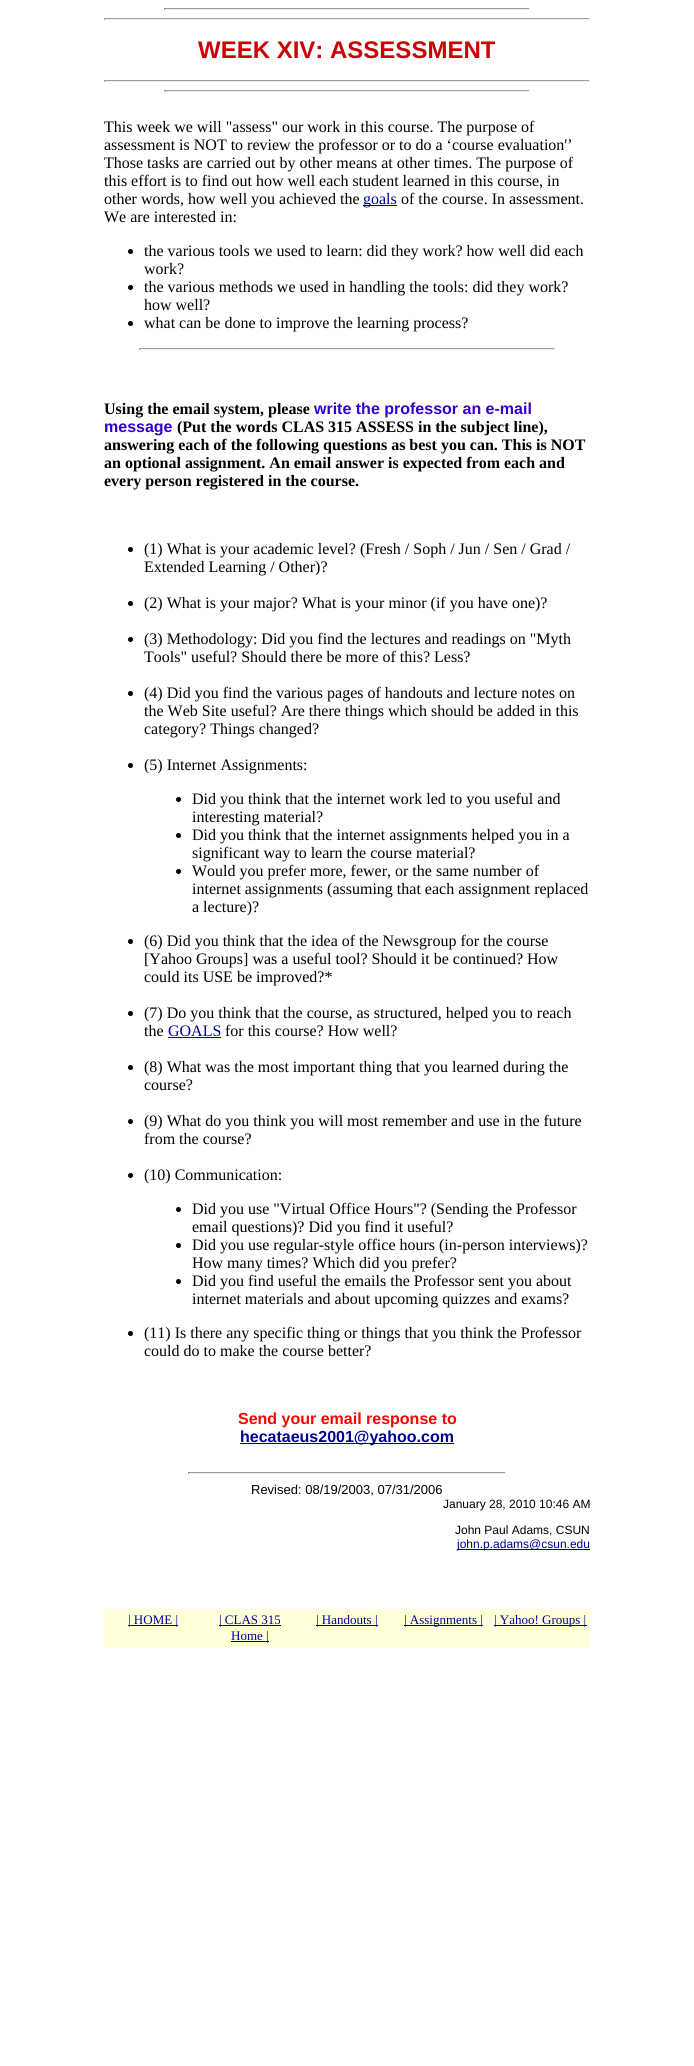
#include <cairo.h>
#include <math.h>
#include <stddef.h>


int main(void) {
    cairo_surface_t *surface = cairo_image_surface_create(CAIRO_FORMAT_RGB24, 694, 2066);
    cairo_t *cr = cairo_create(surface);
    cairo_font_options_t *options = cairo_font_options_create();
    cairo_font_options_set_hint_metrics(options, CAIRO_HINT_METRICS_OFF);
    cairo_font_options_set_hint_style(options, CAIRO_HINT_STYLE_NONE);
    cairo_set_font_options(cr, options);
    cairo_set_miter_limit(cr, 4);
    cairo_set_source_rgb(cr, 1, 1, 1);
    cairo_paint(cr);
    cairo_set_source_rgb(cr, 0.624, 0.624, 0.624);
    cairo_rectangle(cr, 164, 8, 366, 1);
    cairo_fill(cr);
    cairo_set_source_rgb(cr, 0.933, 0.933, 0.933);
    cairo_rectangle(cr, 529, 8, 1, 2);
    cairo_fill(cr);
    cairo_rectangle(cr, 164, 9, 366, 1);
    cairo_fill(cr);
    cairo_set_source_rgb(cr, 0.624, 0.624, 0.624);
    cairo_rectangle(cr, 164, 8, 1, 2);
    cairo_fill(cr);
    cairo_rectangle(cr, 104, 18, 486, 1);
    cairo_fill(cr);
    cairo_set_source_rgb(cr, 0.933, 0.933, 0.933);
    cairo_rectangle(cr, 589, 18, 1, 2);
    cairo_fill(cr);
    cairo_rectangle(cr, 104, 19, 486, 1);
    cairo_fill(cr);
    cairo_set_source_rgb(cr, 0.624, 0.624, 0.624);
    cairo_rectangle(cr, 104, 18, 1, 2);
    cairo_fill(cr);
    cairo_select_font_face(cr, "Liberation Sans", CAIRO_FONT_SLANT_NORMAL, CAIRO_FONT_WEIGHT_BOLD);
    cairo_set_font_size(cr, 24);
    cairo_set_source_rgb(cr, 0.8, 0, 0);
    cairo_move_to(cr, 198, 58);
    cairo_show_text(cr, "WEEK XIV: ASSESSMENT");
    cairo_set_source_rgb(cr, 0.624, 0.624, 0.624);
    cairo_rectangle(cr, 104, 80, 486, 1);
    cairo_fill(cr);
    cairo_set_source_rgb(cr, 0.933, 0.933, 0.933);
    cairo_rectangle(cr, 589, 80, 1, 2);
    cairo_fill(cr);
    cairo_rectangle(cr, 104, 81, 486, 1);
    cairo_fill(cr);
    cairo_set_source_rgb(cr, 0.624, 0.624, 0.624);
    cairo_rectangle(cr, 104, 80, 1, 2);
    cairo_fill(cr);
    cairo_rectangle(cr, 164, 90, 366, 1);
    cairo_fill(cr);
    cairo_set_source_rgb(cr, 0.933, 0.933, 0.933);
    cairo_rectangle(cr, 529, 90, 1, 2);
    cairo_fill(cr);
    cairo_rectangle(cr, 164, 91, 366, 1);
    cairo_fill(cr);
    cairo_set_source_rgb(cr, 0.624, 0.624, 0.624);
    cairo_rectangle(cr, 164, 90, 1, 2);
    cairo_fill(cr);
    cairo_select_font_face(cr, "Liberation Serif", CAIRO_FONT_SLANT_NORMAL, CAIRO_FONT_WEIGHT_NORMAL);
    cairo_set_font_size(cr, 16);
    cairo_set_source_rgb(cr, 0, 0, 0);
    cairo_move_to(cr, 104, 132);
    cairo_show_text(cr, "This week we will \"assess\" our work in this course. The purpose of");
    cairo_move_to(cr, 104, 150);
    cairo_show_text(cr, "assessment is NOT to review the professor or to do a ‘course evaluation'’");
    cairo_move_to(cr, 104, 168);
    cairo_show_text(cr, "Those tasks are carried out by other means at other times. The purpose of");
    cairo_move_to(cr, 104, 186);
    cairo_show_text(cr, "this effort is to find out how well each student learned in this course, in");
    cairo_move_to(cr, 104, 204);
    cairo_show_text(cr, "other words, how well you achieved the");
    cairo_set_source_rgb(cr, 0, 0, 0.6);
    cairo_rectangle(cr, 363, 205, 34, 1);
    cairo_fill(cr);
    cairo_move_to(cr, 363, 204);
    cairo_show_text(cr, "goals");
    cairo_set_source_rgb(cr, 0, 0, 0);
    cairo_move_to(cr, 401, 204);
    cairo_show_text(cr, "of the course. In assessment.");
    cairo_move_to(cr, 104, 222);
    cairo_show_text(cr, "We are interested in:");
    cairo_new_path(cr);
    cairo_arc(cr, 130.5, 251.5, 2.5, 0, 2 * M_PI);
    cairo_fill(cr);
    cairo_move_to(cr, 144, 256);
    cairo_show_text(cr, "the various tools we used to learn: did they work? how well did each");
    cairo_move_to(cr, 144, 274);
    cairo_show_text(cr, "work?");
    cairo_new_path(cr);
    cairo_arc(cr, 130.5, 287.5, 2.5, 0, 2 * M_PI);
    cairo_fill(cr);
    cairo_move_to(cr, 144, 292);
    cairo_show_text(cr, "the various methods we used in handling the tools: did they work?");
    cairo_move_to(cr, 144, 310);
    cairo_show_text(cr, "how well?");
    cairo_new_path(cr);
    cairo_arc(cr, 130.5, 323.5, 2.5, 0, 2 * M_PI);
    cairo_fill(cr);
    cairo_move_to(cr, 144, 328);
    cairo_show_text(cr, "what can be done to improve the learning process?");
    cairo_set_source_rgb(cr, 0.624, 0.624, 0.624);
    cairo_rectangle(cr, 139, 348, 416, 1);
    cairo_fill(cr);
    cairo_set_source_rgb(cr, 0.933, 0.933, 0.933);
    cairo_rectangle(cr, 554, 348, 1, 2);
    cairo_fill(cr);
    cairo_rectangle(cr, 139, 349, 416, 1);
    cairo_fill(cr);
    cairo_set_source_rgb(cr, 0.624, 0.624, 0.624);
    cairo_rectangle(cr, 139, 348, 1, 2);
    cairo_fill(cr);
    cairo_select_font_face(cr, "Liberation Serif", CAIRO_FONT_SLANT_NORMAL, CAIRO_FONT_WEIGHT_BOLD);
    cairo_set_source_rgb(cr, 0, 0, 0);
    cairo_move_to(cr, 104, 414);
    cairo_show_text(cr, "Using the email system, please");
    cairo_select_font_face(cr, "Liberation Sans", CAIRO_FONT_SLANT_NORMAL, CAIRO_FONT_WEIGHT_BOLD);
    cairo_set_source_rgb(cr, 0.2, 0, 0.8);
    cairo_move_to(cr, 314, 414);
    cairo_show_text(cr, "write the professor an e-mail");
    cairo_move_to(cr, 104, 432);
    cairo_show_text(cr, "message");
    cairo_select_font_face(cr, "Liberation Serif", CAIRO_FONT_SLANT_NORMAL, CAIRO_FONT_WEIGHT_BOLD);
    cairo_set_source_rgb(cr, 0, 0, 0);
    cairo_move_to(cr, 177, 432);
    cairo_show_text(cr, "(Put the words CLAS 315 ASSESS in the subject line),");
    cairo_move_to(cr, 104, 450);
    cairo_show_text(cr, "answering each of the following questions as best you can. This is NOT");
    cairo_move_to(cr, 104, 468);
    cairo_show_text(cr, "an optional assignment. An email answer is expected from each and");
    cairo_move_to(cr, 104, 486);
    cairo_show_text(cr, "every person registered in the course.");
    cairo_new_path(cr);
    cairo_arc(cr, 130.5, 549.5, 2.5, 0, 2 * M_PI);
    cairo_fill(cr);
    cairo_select_font_face(cr, "Liberation Serif", CAIRO_FONT_SLANT_NORMAL, CAIRO_FONT_WEIGHT_NORMAL);
    cairo_move_to(cr, 144, 554);
    cairo_show_text(cr, "(1) What is your academic level? (Fresh / Soph / Jun / Sen / Grad /");
    cairo_move_to(cr, 144, 572);
    cairo_show_text(cr, "Extended Learning / Other)?");
    cairo_new_path(cr);
    cairo_arc(cr, 130.5, 603.5, 2.5, 0, 2 * M_PI);
    cairo_fill(cr);
    cairo_move_to(cr, 144, 608);
    cairo_show_text(cr, "(2) What is your major? What is your minor (if you have one)?");
    cairo_new_path(cr);
    cairo_arc(cr, 130.5, 639.5, 2.5, 0, 2 * M_PI);
    cairo_fill(cr);
    cairo_move_to(cr, 144, 644);
    cairo_show_text(cr, "(3) Methodology: Did you find the lectures and readings on \"Myth");
    cairo_move_to(cr, 144, 662);
    cairo_show_text(cr, "Tools\" useful? Should there be more of this? Less?");
    cairo_new_path(cr);
    cairo_arc(cr, 130.5, 693.5, 2.5, 0, 2 * M_PI);
    cairo_fill(cr);
    cairo_move_to(cr, 144, 698);
    cairo_show_text(cr, "(4) Did you find the various pages of handouts and lecture notes on");
    cairo_move_to(cr, 144, 716);
    cairo_show_text(cr, "the Web Site useful? Are there things which should be added in this");
    cairo_move_to(cr, 144, 734);
    cairo_show_text(cr, "category? Things changed?");
    cairo_new_path(cr);
    cairo_arc(cr, 130.5, 765.5, 2.5, 0, 2 * M_PI);
    cairo_fill(cr);
    cairo_move_to(cr, 144, 770);
    cairo_show_text(cr, "(5) Internet Assignments:");
    cairo_new_path(cr);
    cairo_arc(cr, 178.5, 799.5, 2.5, 0, 2 * M_PI);
    cairo_fill(cr);
    cairo_move_to(cr, 192, 804);
    cairo_show_text(cr, "Did you think that the internet work led to you useful and");
    cairo_move_to(cr, 192, 822);
    cairo_show_text(cr, "interesting material?");
    cairo_new_path(cr);
    cairo_arc(cr, 178.5, 835.5, 2.5, 0, 2 * M_PI);
    cairo_fill(cr);
    cairo_move_to(cr, 192, 840);
    cairo_show_text(cr, "Did you think that the internet assignments helped you in a");
    cairo_move_to(cr, 192, 858);
    cairo_show_text(cr, "significant way to learn the course material?");
    cairo_new_path(cr);
    cairo_arc(cr, 178.5, 871.5, 2.5, 0, 2 * M_PI);
    cairo_fill(cr);
    cairo_move_to(cr, 192, 876);
    cairo_show_text(cr, "Would you prefer more, fewer, or the same number of");
    cairo_move_to(cr, 192, 894);
    cairo_show_text(cr, "internet assignments (assuming that each assignment replaced");
    cairo_move_to(cr, 192, 912);
    cairo_show_text(cr, "a lecture)?");
    cairo_new_path(cr);
    cairo_arc(cr, 130.5, 941.5, 2.5, 0, 2 * M_PI);
    cairo_fill(cr);
    cairo_move_to(cr, 144, 946);
    cairo_show_text(cr, "(6) Did you think that the idea of the Newsgroup for the course");
    cairo_move_to(cr, 144, 964);
    cairo_show_text(cr, "[Yahoo Groups] was a useful tool? Should it be continued? How");
    cairo_move_to(cr, 144, 982);
    cairo_show_text(cr, "could its USE be improved?*");
    cairo_new_path(cr);
    cairo_arc(cr, 130.5, 1013.5, 2.5, 0, 2 * M_PI);
    cairo_fill(cr);
    cairo_move_to(cr, 144, 1018);
    cairo_show_text(cr, "(7) Do you think that the course, as structured, helped you to reach");
    cairo_move_to(cr, 144, 1036);
    cairo_show_text(cr, "the");
    cairo_set_source_rgb(cr, 0, 0, 0.6);
    cairo_move_to(cr, 168, 1036);
    cairo_show_text(cr, "GOALS");
    cairo_rectangle(cr, 168, 1037, 53, 1);
    cairo_fill(cr);
    cairo_set_source_rgb(cr, 0, 0, 0);
    cairo_move_to(cr, 225, 1036);
    cairo_show_text(cr, "for this course? How well?");
    cairo_new_path(cr);
    cairo_arc(cr, 130.5, 1067.5, 2.5, 0, 2 * M_PI);
    cairo_fill(cr);
    cairo_move_to(cr, 144, 1072);
    cairo_show_text(cr, "(8) What was the most important thing that you learned during the");
    cairo_move_to(cr, 144, 1090);
    cairo_show_text(cr, "course?");
    cairo_new_path(cr);
    cairo_arc(cr, 130.5, 1121.5, 2.5, 0, 2 * M_PI);
    cairo_fill(cr);
    cairo_move_to(cr, 144, 1126);
    cairo_show_text(cr, "(9) What do you think you will most remember and use in the future");
    cairo_move_to(cr, 144, 1144);
    cairo_show_text(cr, "from the course?");
    cairo_new_path(cr);
    cairo_arc(cr, 130.5, 1175.5, 2.5, 0, 2 * M_PI);
    cairo_fill(cr);
    cairo_move_to(cr, 144, 1180);
    cairo_show_text(cr, "(10) Communication:");
    cairo_new_path(cr);
    cairo_arc(cr, 178.5, 1209.5, 2.5, 0, 2 * M_PI);
    cairo_fill(cr);
    cairo_move_to(cr, 192, 1214);
    cairo_show_text(cr, "Did you use \"Virtual Office Hours\"? (Sending the Professor");
    cairo_move_to(cr, 192, 1232);
    cairo_show_text(cr, "email questions)? Did you find it useful?");
    cairo_new_path(cr);
    cairo_arc(cr, 178.5, 1245.5, 2.5, 0, 2 * M_PI);
    cairo_fill(cr);
    cairo_move_to(cr, 192, 1250);
    cairo_show_text(cr, "Did you use regular-style office hours (in-person interviews)?");
    cairo_move_to(cr, 192, 1268);
    cairo_show_text(cr, "How many times? Which did you prefer?");
    cairo_new_path(cr);
    cairo_arc(cr, 178.5, 1281.5, 2.5, 0, 2 * M_PI);
    cairo_fill(cr);
    cairo_move_to(cr, 192, 1286);
    cairo_show_text(cr, "Did you find useful the emails the Professor sent you about");
    cairo_move_to(cr, 192, 1304);
    cairo_show_text(cr, "internet materials and about upcoming quizzes and exams?");
    cairo_new_path(cr);
    cairo_arc(cr, 130.5, 1333.5, 2.5, 0, 2 * M_PI);
    cairo_fill(cr);
    cairo_move_to(cr, 144, 1338);
    cairo_show_text(cr, "(11) Is there any specific thing or things that you think the Professor");
    cairo_move_to(cr, 144, 1356);
    cairo_show_text(cr, "could do to make the course better?");
    cairo_select_font_face(cr, "Liberation Sans", CAIRO_FONT_SLANT_NORMAL, CAIRO_FONT_WEIGHT_BOLD);
    cairo_set_source_rgb(cr, 1, 0, 0);
    cairo_move_to(cr, 238, 1424);
    cairo_show_text(cr, "Send your email response to");
    cairo_set_source_rgb(cr, 0, 0, 0.6);
    cairo_rectangle(cr, 240, 1443, 214, 1);
    cairo_fill(cr);
    cairo_move_to(cr, 240, 1442);
    cairo_show_text(cr, "hecataeus2001@yahoo.com");
    cairo_set_source_rgb(cr, 0.624, 0.624, 0.624);
    cairo_rectangle(cr, 188, 1472, 318, 1);
    cairo_fill(cr);
    cairo_set_source_rgb(cr, 0.933, 0.933, 0.933);
    cairo_rectangle(cr, 505, 1472, 1, 2);
    cairo_fill(cr);
    cairo_rectangle(cr, 188, 1473, 318, 1);
    cairo_fill(cr);
    cairo_set_source_rgb(cr, 0.624, 0.624, 0.624);
    cairo_rectangle(cr, 188, 1472, 1, 2);
    cairo_fill(cr);
    cairo_select_font_face(cr, "Liberation Sans", CAIRO_FONT_SLANT_NORMAL, CAIRO_FONT_WEIGHT_NORMAL);
    cairo_set_font_size(cr, 13);
    cairo_set_source_rgb(cr, 0, 0, 0);
    cairo_move_to(cr, 251, 1494);
    cairo_show_text(cr, "Revised: 08/19/2003, 07/31/2006");
    cairo_set_font_size(cr, 12);
    cairo_move_to(cr, 443, 1508);
    cairo_show_text(cr, "January 28, 2010 10:46 AM");
    cairo_move_to(cr, 455, 1534);
    cairo_show_text(cr, "John Paul Adams, CSUN");
    cairo_set_source_rgb(cr, 0, 0, 0.6);
    cairo_rectangle(cr, 457, 1549, 133, 1);
    cairo_fill(cr);
    cairo_move_to(cr, 457, 1548);
    cairo_show_text(cr, "john.p.adams@csun.edu");
    cairo_set_source_rgb(cr, 1, 1, 0.847);
    cairo_rectangle(cr, 104, 1609, 486, 38);
    cairo_fill(cr);
    cairo_set_source_rgb(cr, 0, 0, 0.6);
    cairo_rectangle(cr, 128, 1625, 50, 1);
    cairo_fill(cr);
    cairo_select_font_face(cr, "Liberation Serif", CAIRO_FONT_SLANT_NORMAL, CAIRO_FONT_WEIGHT_NORMAL);
    cairo_set_font_size(cr, 13);
    cairo_move_to(cr, 128, 1624);
    cairo_show_text(cr, "| HOME |");
    cairo_rectangle(cr, 219, 1625, 62, 1);
    cairo_fill(cr);
    cairo_move_to(cr, 219, 1624);
    cairo_show_text(cr, "| CLAS 315");
    cairo_rectangle(cr, 231, 1641, 38, 1);
    cairo_fill(cr);
    cairo_move_to(cr, 231, 1640);
    cairo_show_text(cr, "Home |");
    cairo_rectangle(cr, 316, 1625, 62, 1);
    cairo_fill(cr);
    cairo_move_to(cr, 316, 1624);
    cairo_show_text(cr, "| Handouts |");
    cairo_rectangle(cr, 404, 1625, 79, 1);
    cairo_fill(cr);
    cairo_move_to(cr, 404, 1624);
    cairo_show_text(cr, "| Assignments |");
    cairo_rectangle(cr, 494, 1625, 93, 1);
    cairo_fill(cr);
    cairo_move_to(cr, 494, 1624);
    cairo_show_text(cr, "| Yahoo! Groups |");
    cairo_surface_write_to_png(surface, "page.png");
    cairo_font_options_destroy(options);
    cairo_destroy(cr);
    cairo_surface_destroy(surface);
    return 0;
}
